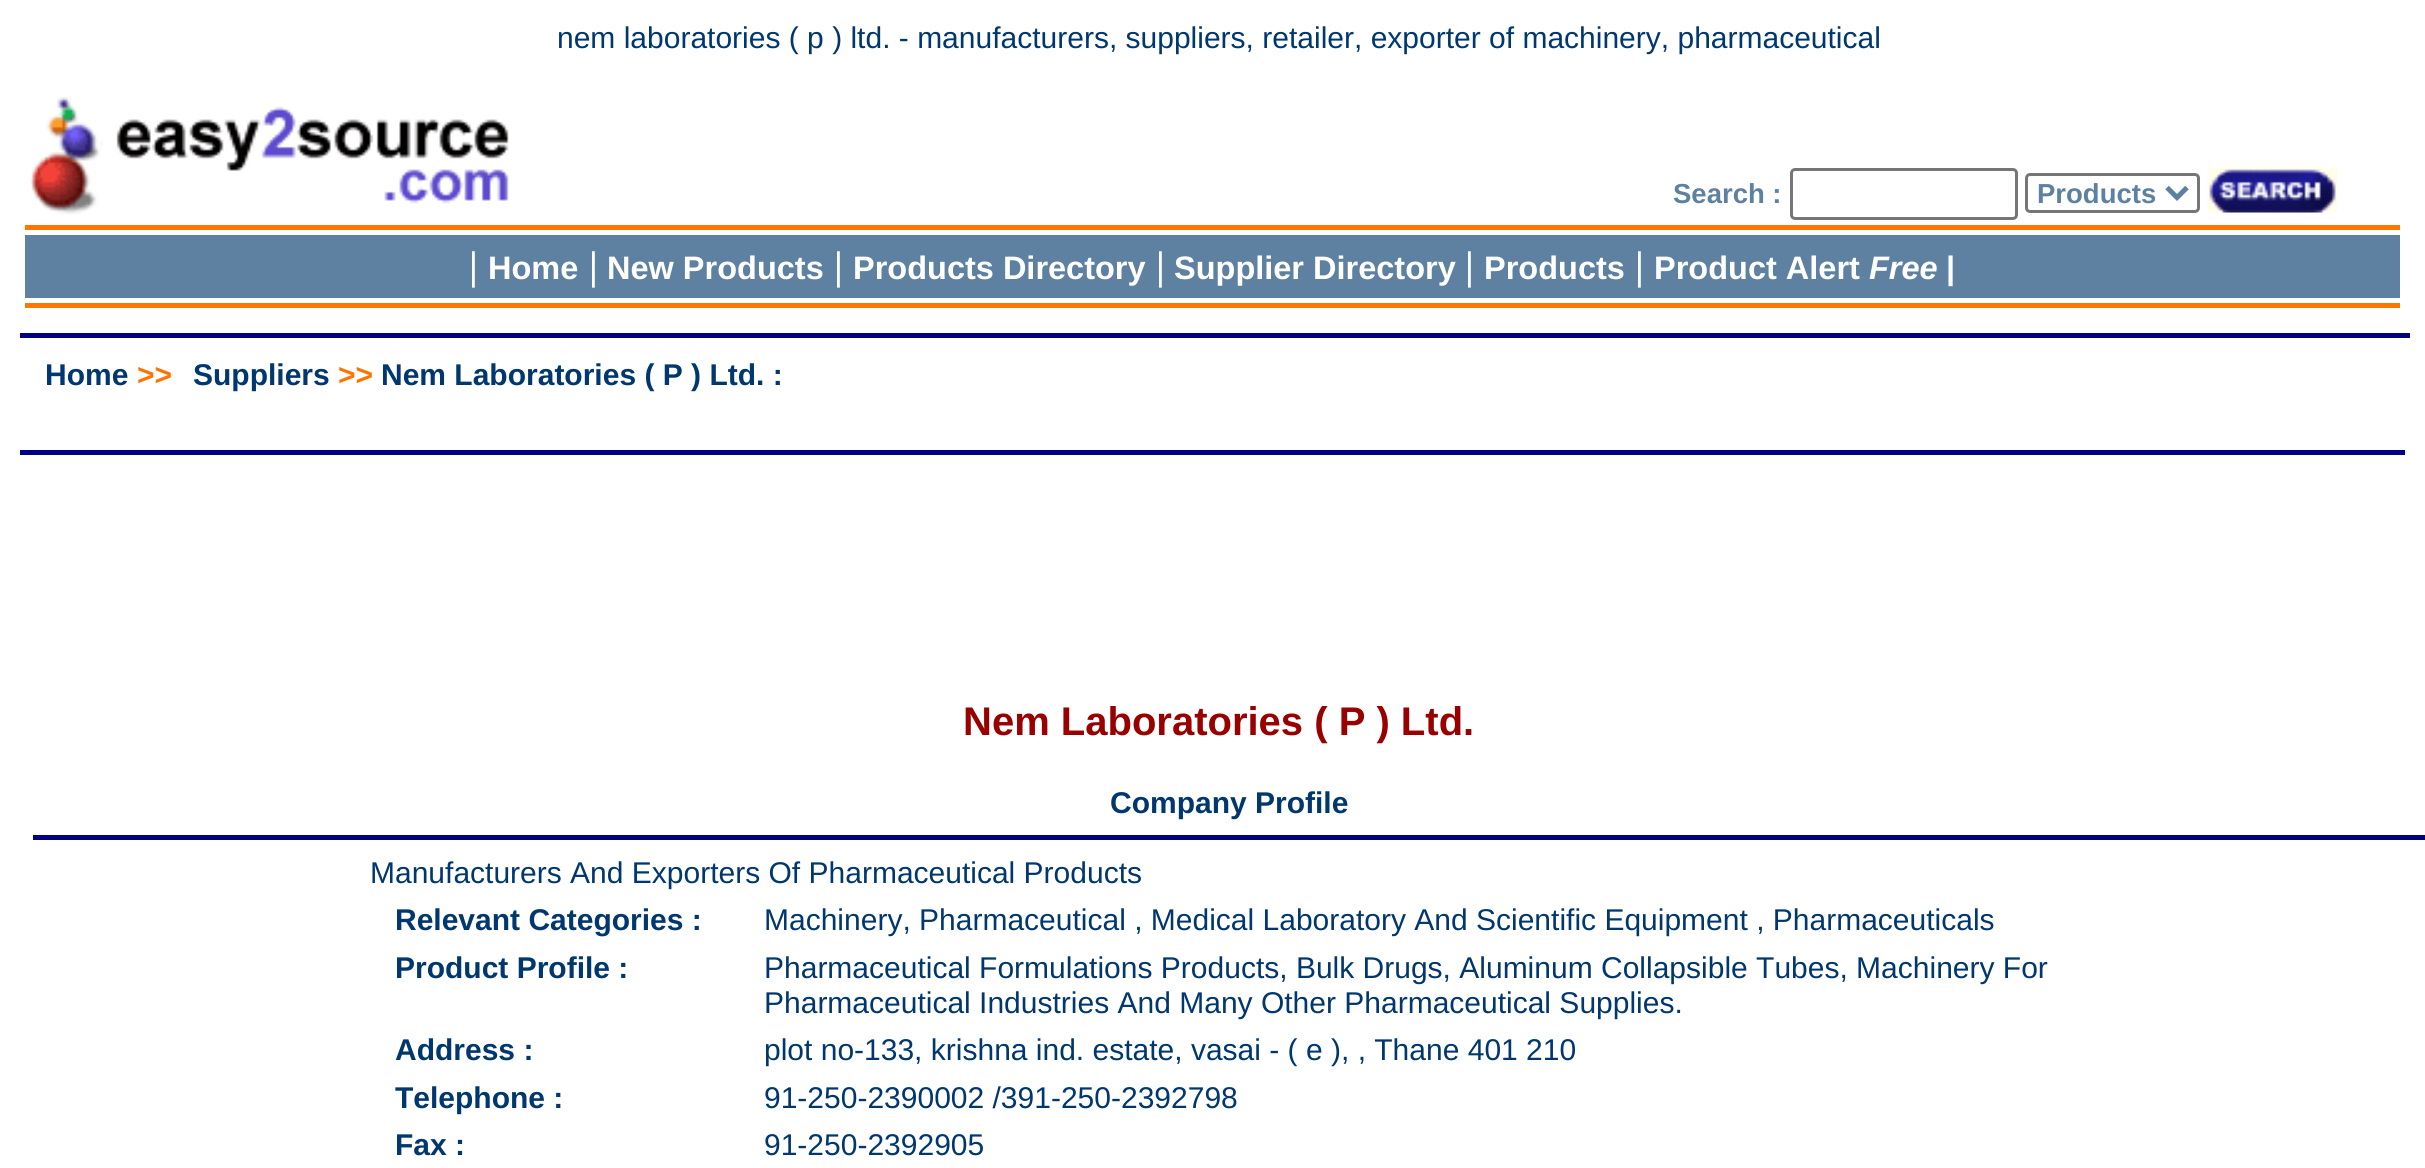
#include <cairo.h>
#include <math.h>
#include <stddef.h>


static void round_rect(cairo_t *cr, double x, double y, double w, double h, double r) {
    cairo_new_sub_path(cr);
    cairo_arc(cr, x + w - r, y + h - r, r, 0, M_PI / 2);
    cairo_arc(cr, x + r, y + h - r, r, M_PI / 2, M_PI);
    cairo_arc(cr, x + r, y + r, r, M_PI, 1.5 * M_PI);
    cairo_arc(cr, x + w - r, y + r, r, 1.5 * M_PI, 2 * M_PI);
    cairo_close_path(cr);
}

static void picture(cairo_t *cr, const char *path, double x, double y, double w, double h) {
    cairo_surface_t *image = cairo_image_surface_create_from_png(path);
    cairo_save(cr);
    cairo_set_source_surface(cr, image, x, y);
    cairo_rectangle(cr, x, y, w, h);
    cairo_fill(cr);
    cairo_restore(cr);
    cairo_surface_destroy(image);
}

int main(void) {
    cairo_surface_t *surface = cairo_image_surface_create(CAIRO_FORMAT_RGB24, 2425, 1168);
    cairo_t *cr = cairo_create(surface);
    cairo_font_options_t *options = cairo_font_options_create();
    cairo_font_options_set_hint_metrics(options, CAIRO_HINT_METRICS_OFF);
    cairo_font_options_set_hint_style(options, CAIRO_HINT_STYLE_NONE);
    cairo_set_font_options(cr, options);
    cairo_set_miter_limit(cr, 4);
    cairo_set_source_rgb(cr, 1, 1, 1);
    cairo_paint(cr);
    cairo_select_font_face(cr, "Liberation Sans", CAIRO_FONT_SLANT_NORMAL, CAIRO_FONT_WEIGHT_NORMAL);
    cairo_set_font_size(cr, 30);
    cairo_set_source_rgb(cr, 0, 0.216, 0.435);
    cairo_move_to(cr, 557, 48);
    cairo_show_text(cr, "nem laboratories ( p ) ltd. - manufacturers, suppliers, retailer, exporter of machinery, pharmaceutical");
    picture(cr, "img1.png", 30, 97, 479, 118);
    cairo_select_font_face(cr, "Liberation Sans", CAIRO_FONT_SLANT_NORMAL, CAIRO_FONT_WEIGHT_BOLD);
    cairo_set_font_size(cr, 27.5);
    cairo_set_source_rgb(cr, 0.369, 0.506, 0.631);
    cairo_move_to(cr, 1673, 203);
    cairo_show_text(cr, "Search :");
    round_rect(cr, 1791.5, 169.5, 225, 49, 3.5);
    cairo_set_source_rgb(cr, 0.463, 0.463, 0.463);
    cairo_set_line_width(cr, 3);
    cairo_stroke(cr);
    round_rect(cr, 2026.5, 174.5, 172, 37, 3.5);
    cairo_stroke(cr);
    cairo_new_path(cr);
    cairo_move_to(cr, 2167, 187.5);
    cairo_line_to(cr, 2177, 197.5);
    cairo_line_to(cr, 2187, 187.5);
    cairo_set_source_rgb(cr, 0.369, 0.506, 0.631);
    cairo_set_line_width(cr, 5);
    cairo_stroke(cr);
    cairo_move_to(cr, 2037, 203);
    cairo_show_text(cr, "Products");
    picture(cr, "img2.png", 2207, 167, 131, 46);
    cairo_set_source_rgb(cr, 1, 0.467, 0);
    cairo_rectangle(cr, 25, 225, 2375, 5);
    cairo_fill(cr);
    cairo_set_source_rgb(cr, 0.369, 0.506, 0.631);
    cairo_rectangle(cr, 25, 235, 2375, 63);
    cairo_fill(cr);
    cairo_select_font_face(cr, "Liberation Serif", CAIRO_FONT_SLANT_NORMAL, CAIRO_FONT_WEIGHT_BOLD);
    cairo_set_font_size(cr, 40);
    cairo_set_source_rgb(cr, 1, 1, 1);
    cairo_move_to(cr, 469, 279);
    cairo_show_text(cr, "|");
    cairo_select_font_face(cr, "Liberation Sans", CAIRO_FONT_SLANT_NORMAL, CAIRO_FONT_WEIGHT_BOLD);
    cairo_set_font_size(cr, 32.5);
    cairo_move_to(cr, 488, 279);
    cairo_show_text(cr, "Home");
    cairo_select_font_face(cr, "Liberation Serif", CAIRO_FONT_SLANT_NORMAL, CAIRO_FONT_WEIGHT_BOLD);
    cairo_set_font_size(cr, 40);
    cairo_move_to(cr, 589, 279);
    cairo_show_text(cr, "|");
    cairo_select_font_face(cr, "Liberation Sans", CAIRO_FONT_SLANT_NORMAL, CAIRO_FONT_WEIGHT_BOLD);
    cairo_set_font_size(cr, 32.5);
    cairo_move_to(cr, 607, 279);
    cairo_show_text(cr, "New Products");
    cairo_select_font_face(cr, "Liberation Serif", CAIRO_FONT_SLANT_NORMAL, CAIRO_FONT_WEIGHT_BOLD);
    cairo_set_font_size(cr, 40);
    cairo_move_to(cr, 834, 279);
    cairo_show_text(cr, "|");
    cairo_select_font_face(cr, "Liberation Sans", CAIRO_FONT_SLANT_NORMAL, CAIRO_FONT_WEIGHT_BOLD);
    cairo_set_font_size(cr, 32.5);
    cairo_move_to(cr, 853, 279);
    cairo_show_text(cr, "Products Directory");
    cairo_select_font_face(cr, "Liberation Serif", CAIRO_FONT_SLANT_NORMAL, CAIRO_FONT_WEIGHT_BOLD);
    cairo_set_font_size(cr, 40);
    cairo_move_to(cr, 1156, 279);
    cairo_show_text(cr, "|");
    cairo_select_font_face(cr, "Liberation Sans", CAIRO_FONT_SLANT_NORMAL, CAIRO_FONT_WEIGHT_BOLD);
    cairo_set_font_size(cr, 32.5);
    cairo_move_to(cr, 1174, 279);
    cairo_show_text(cr, "Supplier Directory");
    cairo_select_font_face(cr, "Liberation Serif", CAIRO_FONT_SLANT_NORMAL, CAIRO_FONT_WEIGHT_BOLD);
    cairo_set_font_size(cr, 40);
    cairo_move_to(cr, 1465, 279);
    cairo_show_text(cr, "|");
    cairo_select_font_face(cr, "Liberation Sans", CAIRO_FONT_SLANT_NORMAL, CAIRO_FONT_WEIGHT_BOLD);
    cairo_set_font_size(cr, 32.5);
    cairo_move_to(cr, 1484, 279);
    cairo_show_text(cr, "Products");
    cairo_select_font_face(cr, "Liberation Serif", CAIRO_FONT_SLANT_NORMAL, CAIRO_FONT_WEIGHT_BOLD);
    cairo_set_font_size(cr, 40);
    cairo_move_to(cr, 1635, 279);
    cairo_show_text(cr, "|");
    cairo_select_font_face(cr, "Liberation Sans", CAIRO_FONT_SLANT_NORMAL, CAIRO_FONT_WEIGHT_BOLD);
    cairo_set_font_size(cr, 32.5);
    cairo_move_to(cr, 1654, 279);
    cairo_show_text(cr, "Product Alert");
    cairo_select_font_face(cr, "Liberation Sans", CAIRO_FONT_SLANT_ITALIC, CAIRO_FONT_WEIGHT_BOLD);
    cairo_move_to(cr, 1869, 279);
    cairo_show_text(cr, "Free");
    cairo_select_font_face(cr, "Liberation Sans", CAIRO_FONT_SLANT_NORMAL, CAIRO_FONT_WEIGHT_BOLD);
    cairo_move_to(cr, 1946, 279);
    cairo_show_text(cr, "|");
    cairo_set_source_rgb(cr, 1, 0.467, 0);
    cairo_rectangle(cr, 25, 303, 2375, 5);
    cairo_fill(cr);
    cairo_set_source_rgb(cr, 0, 0, 0.502);
    cairo_rectangle(cr, 20, 333, 2390, 5);
    cairo_fill(cr);
    cairo_set_font_size(cr, 30);
    cairo_set_source_rgb(cr, 0, 0.216, 0.435);
    cairo_move_to(cr, 45, 385);
    cairo_show_text(cr, "Home");
    cairo_set_source_rgb(cr, 1, 0.451, 0);
    cairo_move_to(cr, 137, 385);
    cairo_show_text(cr, ">>");
    cairo_set_source_rgb(cr, 0, 0.216, 0.435);
    cairo_move_to(cr, 193, 385);
    cairo_show_text(cr, "Suppliers");
    cairo_set_source_rgb(cr, 1, 0.451, 0);
    cairo_move_to(cr, 338, 385);
    cairo_show_text(cr, ">>");
    cairo_set_source_rgb(cr, 0, 0.216, 0.435);
    cairo_move_to(cr, 381, 385);
    cairo_show_text(cr, "Nem Laboratories ( P ) Ltd. :");
    cairo_set_source_rgb(cr, 0, 0, 0.502);
    cairo_rectangle(cr, 20, 450, 2385, 5);
    cairo_fill(cr);
    cairo_set_font_size(cr, 40);
    cairo_set_source_rgb(cr, 0.6, 0, 0);
    cairo_move_to(cr, 963, 735);
    cairo_show_text(cr, "Nem Laboratories ( P ) Ltd.");
    cairo_set_font_size(cr, 30);
    cairo_set_source_rgb(cr, 0, 0.216, 0.435);
    cairo_move_to(cr, 1110, 813);
    cairo_show_text(cr, "Company Profile");
    cairo_set_source_rgb(cr, 0, 0, 0.502);
    cairo_rectangle(cr, 33, 835, 2392, 5);
    cairo_fill(cr);
    cairo_select_font_face(cr, "Liberation Sans", CAIRO_FONT_SLANT_NORMAL, CAIRO_FONT_WEIGHT_NORMAL);
    cairo_set_source_rgb(cr, 0, 0.216, 0.435);
    cairo_move_to(cr, 370, 883);
    cairo_show_text(cr, "Manufacturers And Exporters Of Pharmaceutical Products");
    cairo_select_font_face(cr, "Liberation Sans", CAIRO_FONT_SLANT_NORMAL, CAIRO_FONT_WEIGHT_BOLD);
    cairo_move_to(cr, 395, 930);
    cairo_show_text(cr, "Relevant Categories :");
    cairo_select_font_face(cr, "Liberation Sans", CAIRO_FONT_SLANT_NORMAL, CAIRO_FONT_WEIGHT_NORMAL);
    cairo_move_to(cr, 764, 930);
    cairo_show_text(cr, "Machinery, Pharmaceutical , Medical Laboratory And Scientific Equipment , Pharmaceuticals");
    cairo_select_font_face(cr, "Liberation Sans", CAIRO_FONT_SLANT_NORMAL, CAIRO_FONT_WEIGHT_BOLD);
    cairo_move_to(cr, 395, 978);
    cairo_show_text(cr, "Product Profile :");
    cairo_select_font_face(cr, "Liberation Sans", CAIRO_FONT_SLANT_NORMAL, CAIRO_FONT_WEIGHT_NORMAL);
    cairo_move_to(cr, 764, 978);
    cairo_show_text(cr, "Pharmaceutical Formulations Products, Bulk Drugs, Aluminum Collapsible Tubes, Machinery For");
    cairo_move_to(cr, 764, 1013);
    cairo_show_text(cr, "Pharmaceutical Industries And Many Other Pharmaceutical Supplies.");
    cairo_select_font_face(cr, "Liberation Sans", CAIRO_FONT_SLANT_NORMAL, CAIRO_FONT_WEIGHT_BOLD);
    cairo_move_to(cr, 395, 1060);
    cairo_show_text(cr, "Address :");
    cairo_select_font_face(cr, "Liberation Sans", CAIRO_FONT_SLANT_NORMAL, CAIRO_FONT_WEIGHT_NORMAL);
    cairo_move_to(cr, 764, 1060);
    cairo_show_text(cr, "plot no-133, krishna ind. estate, vasai - ( e ), , Thane 401 210");
    cairo_select_font_face(cr, "Liberation Sans", CAIRO_FONT_SLANT_NORMAL, CAIRO_FONT_WEIGHT_BOLD);
    cairo_move_to(cr, 395, 1108);
    cairo_show_text(cr, "Telephone :");
    cairo_select_font_face(cr, "Liberation Sans", CAIRO_FONT_SLANT_NORMAL, CAIRO_FONT_WEIGHT_NORMAL);
    cairo_move_to(cr, 764, 1108);
    cairo_show_text(cr, "91-250-2390002 /391-250-2392798");
    cairo_select_font_face(cr, "Liberation Sans", CAIRO_FONT_SLANT_NORMAL, CAIRO_FONT_WEIGHT_BOLD);
    cairo_move_to(cr, 395, 1155);
    cairo_show_text(cr, "Fax :");
    cairo_select_font_face(cr, "Liberation Sans", CAIRO_FONT_SLANT_NORMAL, CAIRO_FONT_WEIGHT_NORMAL);
    cairo_move_to(cr, 764, 1155);
    cairo_show_text(cr, "91-250-2392905");
    cairo_surface_write_to_png(surface, "page.png");
    cairo_font_options_destroy(options);
    cairo_destroy(cr);
    cairo_surface_destroy(surface);
    return 0;
}
